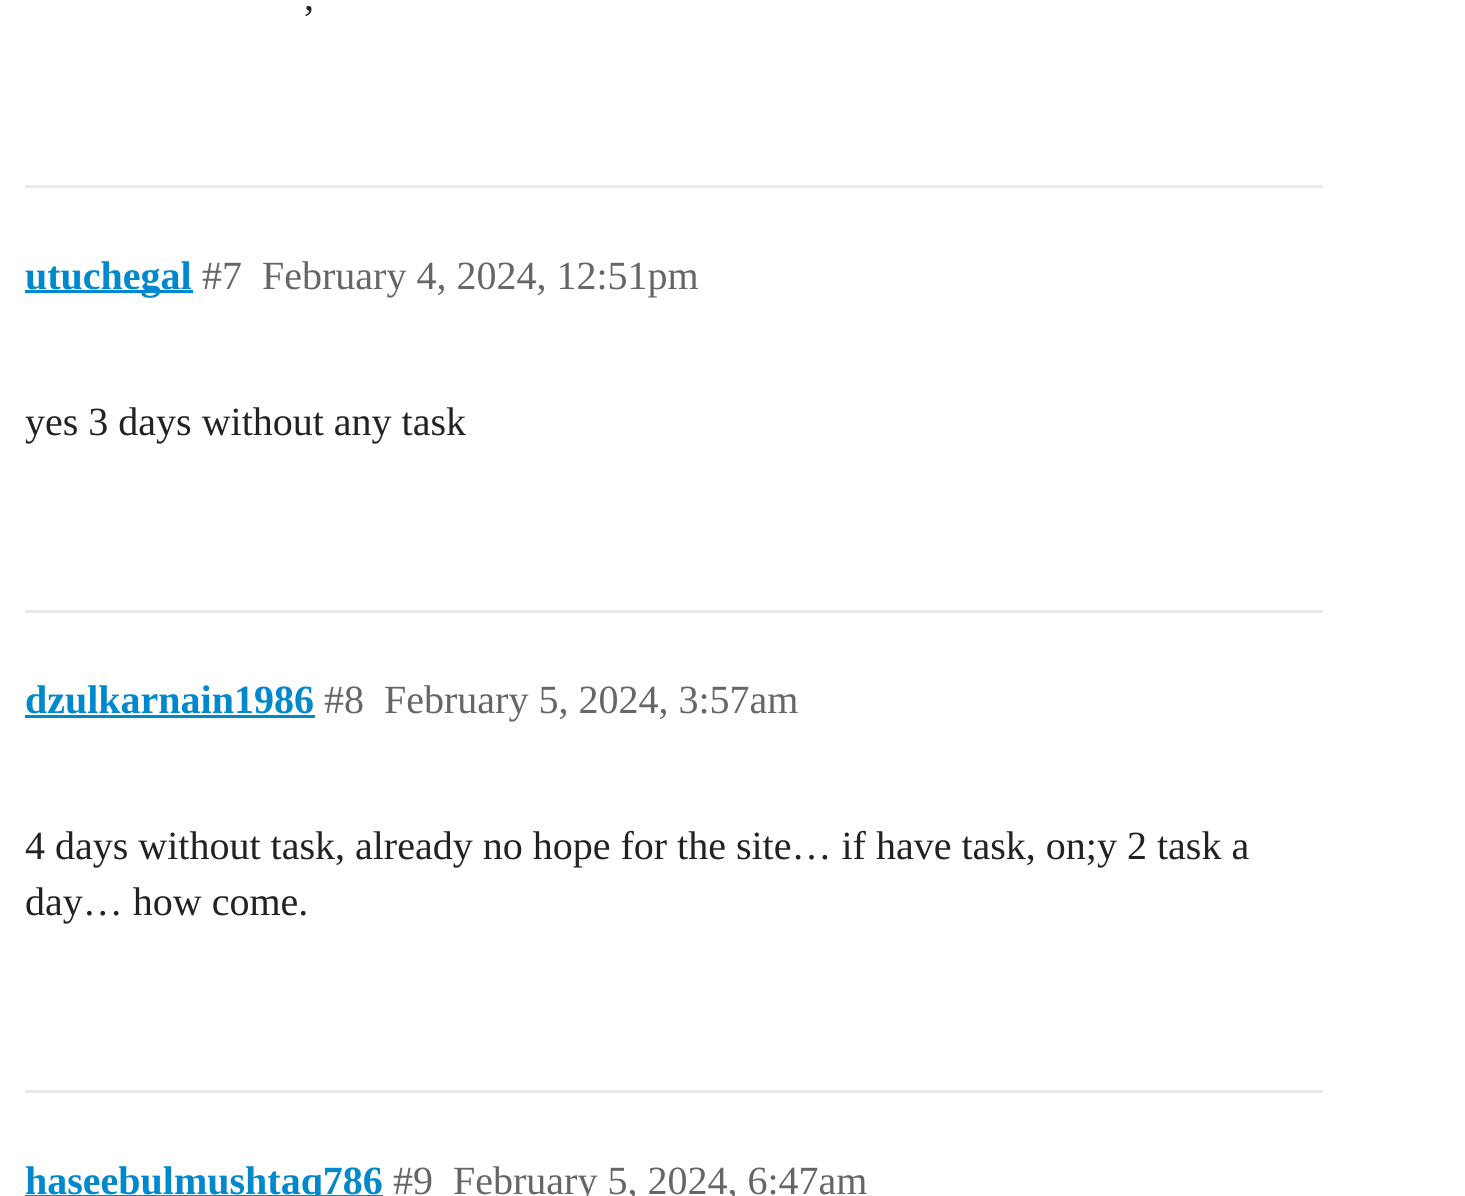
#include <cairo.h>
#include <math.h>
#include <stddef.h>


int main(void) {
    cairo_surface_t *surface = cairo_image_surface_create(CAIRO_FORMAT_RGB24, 1465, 1196);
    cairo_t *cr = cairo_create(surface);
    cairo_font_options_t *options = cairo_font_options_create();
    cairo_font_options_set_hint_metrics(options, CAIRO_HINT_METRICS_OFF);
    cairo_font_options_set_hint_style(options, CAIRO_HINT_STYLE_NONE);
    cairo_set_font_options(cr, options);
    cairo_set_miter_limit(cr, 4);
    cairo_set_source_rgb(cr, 1, 1, 1);
    cairo_paint(cr);
    cairo_select_font_face(cr, "Liberation Serif", CAIRO_FONT_SLANT_NORMAL, CAIRO_FONT_WEIGHT_NORMAL);
    cairo_set_font_size(cr, 40);
    cairo_set_source_rgb(cr, 0.133, 0.133, 0.133);
    cairo_move_to(cr, 304, 10);
    cairo_show_text(cr, ",");
    cairo_set_source_rgb(cr, 0.914, 0.914, 0.914);
    cairo_rectangle(cr, 25, 185, 1298, 3);
    cairo_fill(cr);
    cairo_set_source_rgb(cr, 0, 0.533, 0.8);
    cairo_rectangle(cr, 25, 290, 168, 3);
    cairo_fill(cr);
    cairo_select_font_face(cr, "Liberation Serif", CAIRO_FONT_SLANT_NORMAL, CAIRO_FONT_WEIGHT_BOLD);
    cairo_move_to(cr, 25, 289);
    cairo_show_text(cr, "utuchegal");
    cairo_select_font_face(cr, "Liberation Serif", CAIRO_FONT_SLANT_NORMAL, CAIRO_FONT_WEIGHT_NORMAL);
    cairo_set_source_rgb(cr, 0.4, 0.4, 0.4);
    cairo_move_to(cr, 202, 289);
    cairo_show_text(cr, "#7");
    cairo_move_to(cr, 262, 289);
    cairo_show_text(cr, "February 4, 2024, 12:51pm");
    cairo_set_source_rgb(cr, 0.133, 0.133, 0.133);
    cairo_move_to(cr, 25, 435);
    cairo_show_text(cr, "yes 3 days without any task");
    cairo_set_source_rgb(cr, 0.914, 0.914, 0.914);
    cairo_rectangle(cr, 25, 610, 1298, 3);
    cairo_fill(cr);
    cairo_select_font_face(cr, "Liberation Serif", CAIRO_FONT_SLANT_NORMAL, CAIRO_FONT_WEIGHT_BOLD);
    cairo_set_source_rgb(cr, 0, 0.533, 0.8);
    cairo_move_to(cr, 25, 713);
    cairo_show_text(cr, "dzulkarnain1986");
    cairo_rectangle(cr, 25, 715, 290, 3);
    cairo_fill(cr);
    cairo_select_font_face(cr, "Liberation Serif", CAIRO_FONT_SLANT_NORMAL, CAIRO_FONT_WEIGHT_NORMAL);
    cairo_set_source_rgb(cr, 0.4, 0.4, 0.4);
    cairo_move_to(cr, 324, 713);
    cairo_show_text(cr, "#8");
    cairo_move_to(cr, 384, 713);
    cairo_show_text(cr, "February 5, 2024, 3:57am");
    cairo_set_source_rgb(cr, 0.133, 0.133, 0.133);
    cairo_move_to(cr, 25, 859);
    cairo_show_text(cr, "4 days without task, already no hope for the site… if have task, on;y 2 task a");
    cairo_move_to(cr, 25, 915);
    cairo_show_text(cr, "day… how come.");
    cairo_set_source_rgb(cr, 0.914, 0.914, 0.914);
    cairo_rectangle(cr, 25, 1090, 1298, 3);
    cairo_fill(cr);
    cairo_set_source_rgb(cr, 0, 0.533, 0.8);
    cairo_rectangle(cr, 25, 1195, 358, 1);
    cairo_fill(cr);
    cairo_select_font_face(cr, "Liberation Serif", CAIRO_FONT_SLANT_NORMAL, CAIRO_FONT_WEIGHT_BOLD);
    cairo_move_to(cr, 25, 1194);
    cairo_show_text(cr, "haseebulmushtaq786");
    cairo_select_font_face(cr, "Liberation Serif", CAIRO_FONT_SLANT_NORMAL, CAIRO_FONT_WEIGHT_NORMAL);
    cairo_set_source_rgb(cr, 0.4, 0.4, 0.4);
    cairo_move_to(cr, 393, 1194);
    cairo_show_text(cr, "#9");
    cairo_move_to(cr, 453, 1194);
    cairo_show_text(cr, "February 5, 2024, 6:47am");
    cairo_surface_write_to_png(surface, "page.png");
    cairo_font_options_destroy(options);
    cairo_destroy(cr);
    cairo_surface_destroy(surface);
    return 0;
}
